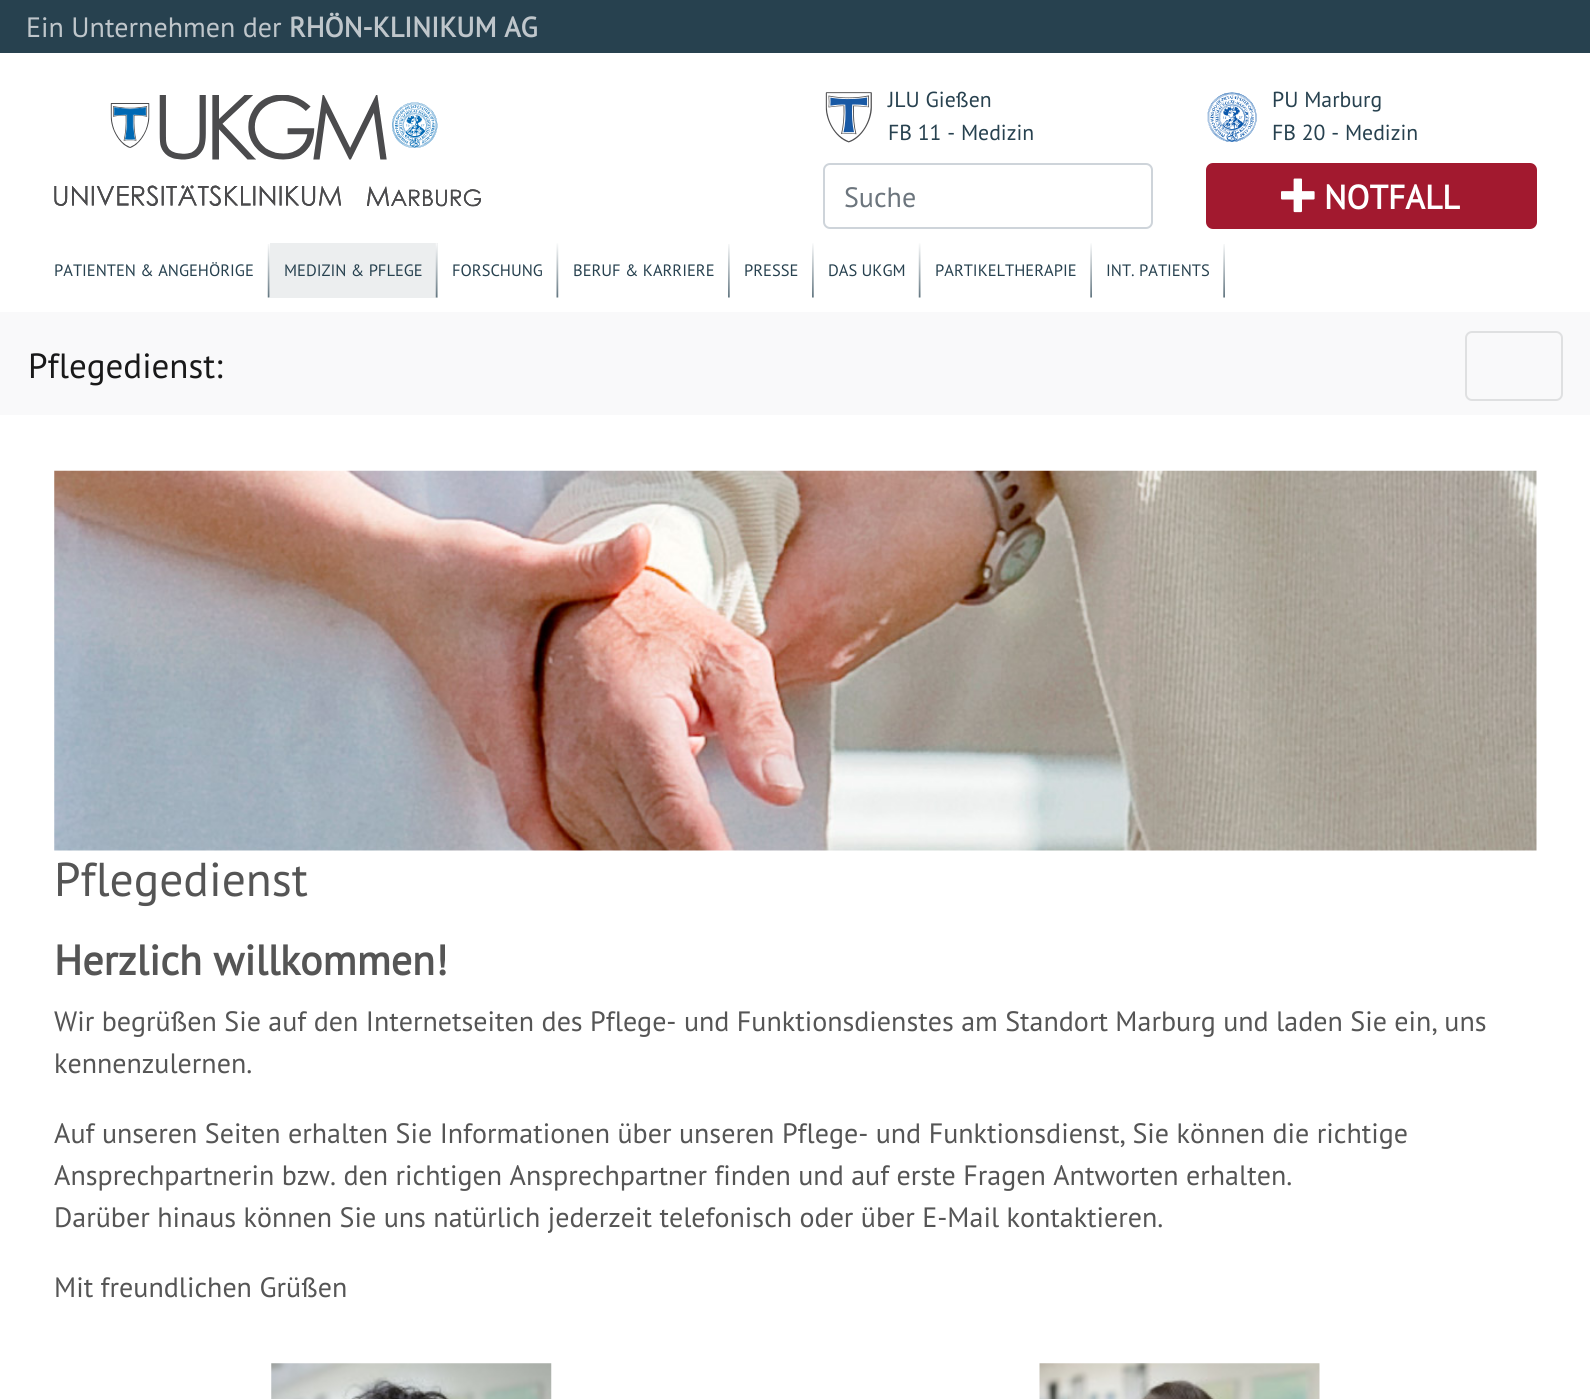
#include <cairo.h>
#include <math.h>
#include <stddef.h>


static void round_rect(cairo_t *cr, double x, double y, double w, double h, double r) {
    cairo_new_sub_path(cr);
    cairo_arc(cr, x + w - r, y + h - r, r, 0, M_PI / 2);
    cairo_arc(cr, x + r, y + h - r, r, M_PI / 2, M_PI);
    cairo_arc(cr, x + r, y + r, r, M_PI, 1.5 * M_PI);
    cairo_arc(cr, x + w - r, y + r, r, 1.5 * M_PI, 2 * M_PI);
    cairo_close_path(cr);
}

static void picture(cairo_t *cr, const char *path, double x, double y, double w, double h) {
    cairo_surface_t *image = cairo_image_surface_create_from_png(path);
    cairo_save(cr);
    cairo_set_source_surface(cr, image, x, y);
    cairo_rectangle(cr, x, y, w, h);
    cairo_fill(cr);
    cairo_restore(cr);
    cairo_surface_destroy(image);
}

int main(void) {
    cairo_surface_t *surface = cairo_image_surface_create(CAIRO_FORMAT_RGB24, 1590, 1399);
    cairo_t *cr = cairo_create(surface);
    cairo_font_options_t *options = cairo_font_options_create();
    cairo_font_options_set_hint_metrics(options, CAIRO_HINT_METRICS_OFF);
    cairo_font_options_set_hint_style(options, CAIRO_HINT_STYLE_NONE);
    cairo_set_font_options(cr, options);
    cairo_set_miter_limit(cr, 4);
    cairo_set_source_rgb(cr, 0.153, 0.255, 0.31);
    cairo_paint(cr);
    cairo_select_font_face(cr, "PT Sans", CAIRO_FONT_SLANT_NORMAL, CAIRO_FONT_WEIGHT_NORMAL);
    cairo_set_font_size(cr, 28);
    cairo_set_source_rgb(cr, 0.749, 0.776, 0.796);
    cairo_move_to(cr, 26, 37);
    cairo_show_text(cr, "Ein Unternehmen der");
    cairo_select_font_face(cr, "PT Sans", CAIRO_FONT_SLANT_NORMAL, CAIRO_FONT_WEIGHT_BOLD);
    cairo_move_to(cr, 289, 37);
    cairo_show_text(cr, "RHÖN-KLINIKUM AG");
    cairo_set_source_rgb(cr, 1, 1, 1);
    cairo_rectangle(cr, 0, 53, 1590, 1346);
    cairo_fill(cr);
    picture(cr, "img1.png", 54, 95, 427, 112);
    picture(cr, "img2.png", 825, 92, 47, 51);
    cairo_select_font_face(cr, "PT Sans", CAIRO_FONT_SLANT_NORMAL, CAIRO_FONT_WEIGHT_NORMAL);
    cairo_set_font_size(cr, 21.75);
    cairo_set_source_rgb(cr, 0.153, 0.255, 0.31);
    cairo_move_to(cr, 888, 107);
    cairo_show_text(cr, "JLU Gießen");
    cairo_move_to(cr, 888, 140);
    cairo_show_text(cr, "FB 11 - Medizin");
    picture(cr, "img3.png", 1207, 92, 50, 50);
    cairo_move_to(cr, 1272, 107);
    cairo_show_text(cr, "PU Marburg");
    cairo_move_to(cr, 1272, 140);
    cairo_show_text(cr, "FB 20 - Medizin");
    round_rect(cr, 824, 164, 328, 64, 6);
    cairo_set_source_rgb(cr, 0.808, 0.831, 0.855);
    cairo_stroke(cr);
    cairo_set_font_size(cr, 28);
    cairo_set_source_rgb(cr, 0.424, 0.459, 0.49);
    cairo_move_to(cr, 844, 207);
    cairo_show_text(cr, "Suche");
    cairo_set_source_rgb(cr, 0.635, 0.098, 0.184);
    round_rect(cr, 1206, 163, 331, 66, 7);
    cairo_fill(cr);
    picture(cr, "img4.png", 1281, 178, 34, 35);
    cairo_select_font_face(cr, "PT Sans", CAIRO_FONT_SLANT_NORMAL, CAIRO_FONT_WEIGHT_BOLD);
    cairo_set_font_size(cr, 33.5);
    cairo_set_source_rgb(cr, 1, 1, 1);
    cairo_move_to(cr, 1324, 209);
    cairo_show_text(cr, "NOTFALL");
    picture(cr, "img5.png", 267, 244, 3, 54);
    cairo_select_font_face(cr, "PT Sans", CAIRO_FONT_SLANT_NORMAL, CAIRO_FONT_WEIGHT_NORMAL);
    cairo_set_font_size(cr, 16.5);
    cairo_set_source_rgb(cr, 0.153, 0.255, 0.31);
    cairo_move_to(cr, 54, 276);
    cairo_show_text(cr, "PATIENTEN & ANGEHÖRIGE");
    cairo_set_source_rgb(cr, 0.925, 0.933, 0.937);
    cairo_rectangle(cr, 270, 243, 168, 55);
    cairo_fill(cr);
    picture(cr, "img6.png", 435, 243, 3, 55);
    cairo_set_source_rgb(cr, 0.153, 0.255, 0.31);
    cairo_move_to(cr, 284, 276);
    cairo_show_text(cr, "MEDIZIN & PFLEGE");
    picture(cr, "img7.png", 556, 243, 3, 55);
    cairo_move_to(cr, 452, 276);
    cairo_show_text(cr, "FORSCHUNG");
    picture(cr, "img8.png", 728, 244, 2, 54);
    cairo_move_to(cr, 573, 276);
    cairo_show_text(cr, "BERUF & KARRIERE");
    picture(cr, "img9.png", 812, 243, 2, 55);
    cairo_move_to(cr, 744, 276);
    cairo_show_text(cr, "PRESSE");
    picture(cr, "img10.png", 918, 243, 3, 55);
    cairo_move_to(cr, 828, 276);
    cairo_show_text(cr, "DAS UKGM");
    picture(cr, "img11.png", 1090, 243, 2, 55);
    cairo_move_to(cr, 935, 276);
    cairo_show_text(cr, "PARTIKELTHERAPIE");
    picture(cr, "img12.png", 1223, 244, 2, 54);
    cairo_move_to(cr, 1106, 276);
    cairo_show_text(cr, "INT. PATIENTS");
    cairo_set_source_rgb(cr, 0.973, 0.976, 0.98);
    cairo_rectangle(cr, 0, 312, 1590, 103);
    cairo_fill(cr);
    cairo_set_font_size(cr, 35);
    cairo_set_source_rgb(cr, 0.098, 0.098, 0.098);
    cairo_move_to(cr, 28, 378);
    cairo_show_text(cr, "Pflegedienst:");
    round_rect(cr, 1466, 332, 96, 68, 6);
    cairo_set_source_rgb(cr, 0.875, 0.878, 0.882);
    cairo_stroke(cr);
    picture(cr, "img13.png", 54, 470, 1483, 381);
    cairo_set_font_size(cr, 47.5);
    cairo_set_source_rgb(cr, 0.333, 0.333, 0.333);
    cairo_move_to(cr, 54, 896);
    cairo_show_text(cr, "Pflegedienst");
    cairo_select_font_face(cr, "PT Sans", CAIRO_FONT_SLANT_NORMAL, CAIRO_FONT_WEIGHT_BOLD);
    cairo_set_font_size(cr, 42);
    cairo_move_to(cr, 54, 975);
    cairo_show_text(cr, "Herzlich willkommen!");
    cairo_select_font_face(cr, "PT Sans", CAIRO_FONT_SLANT_NORMAL, CAIRO_FONT_WEIGHT_NORMAL);
    cairo_set_font_size(cr, 28);
    cairo_move_to(cr, 54, 1031);
    cairo_show_text(cr, "Wir begrüßen Sie auf den Internetseiten des Pflege- und Funktionsdienstes am Standort Marburg und laden Sie ein, uns");
    cairo_move_to(cr, 54, 1073);
    cairo_show_text(cr, "kennenzulernen.");
    cairo_move_to(cr, 54, 1143);
    cairo_show_text(cr, "Auf unseren Seiten erhalten Sie Informationen über unseren Pflege- und Funktionsdienst, Sie können die richtige");
    cairo_move_to(cr, 54, 1185);
    cairo_show_text(cr, "Ansprechpartnerin bzw. den richtigen Ansprechpartner finden und auf erste Fragen Antworten erhalten.");
    cairo_move_to(cr, 54, 1227);
    cairo_show_text(cr, "Darüber hinaus können Sie uns natürlich jederzeit telefonisch oder über E-Mail kontaktieren.");
    cairo_move_to(cr, 54, 1297);
    cairo_show_text(cr, "Mit freundlichen Grüßen");
    picture(cr, "img14.png", 271, 1363, 281, 36);
    picture(cr, "img15.png", 1039, 1363, 281, 36);
    cairo_surface_write_to_png(surface, "page.png");
    cairo_font_options_destroy(options);
    cairo_destroy(cr);
    cairo_surface_destroy(surface);
    return 0;
}
